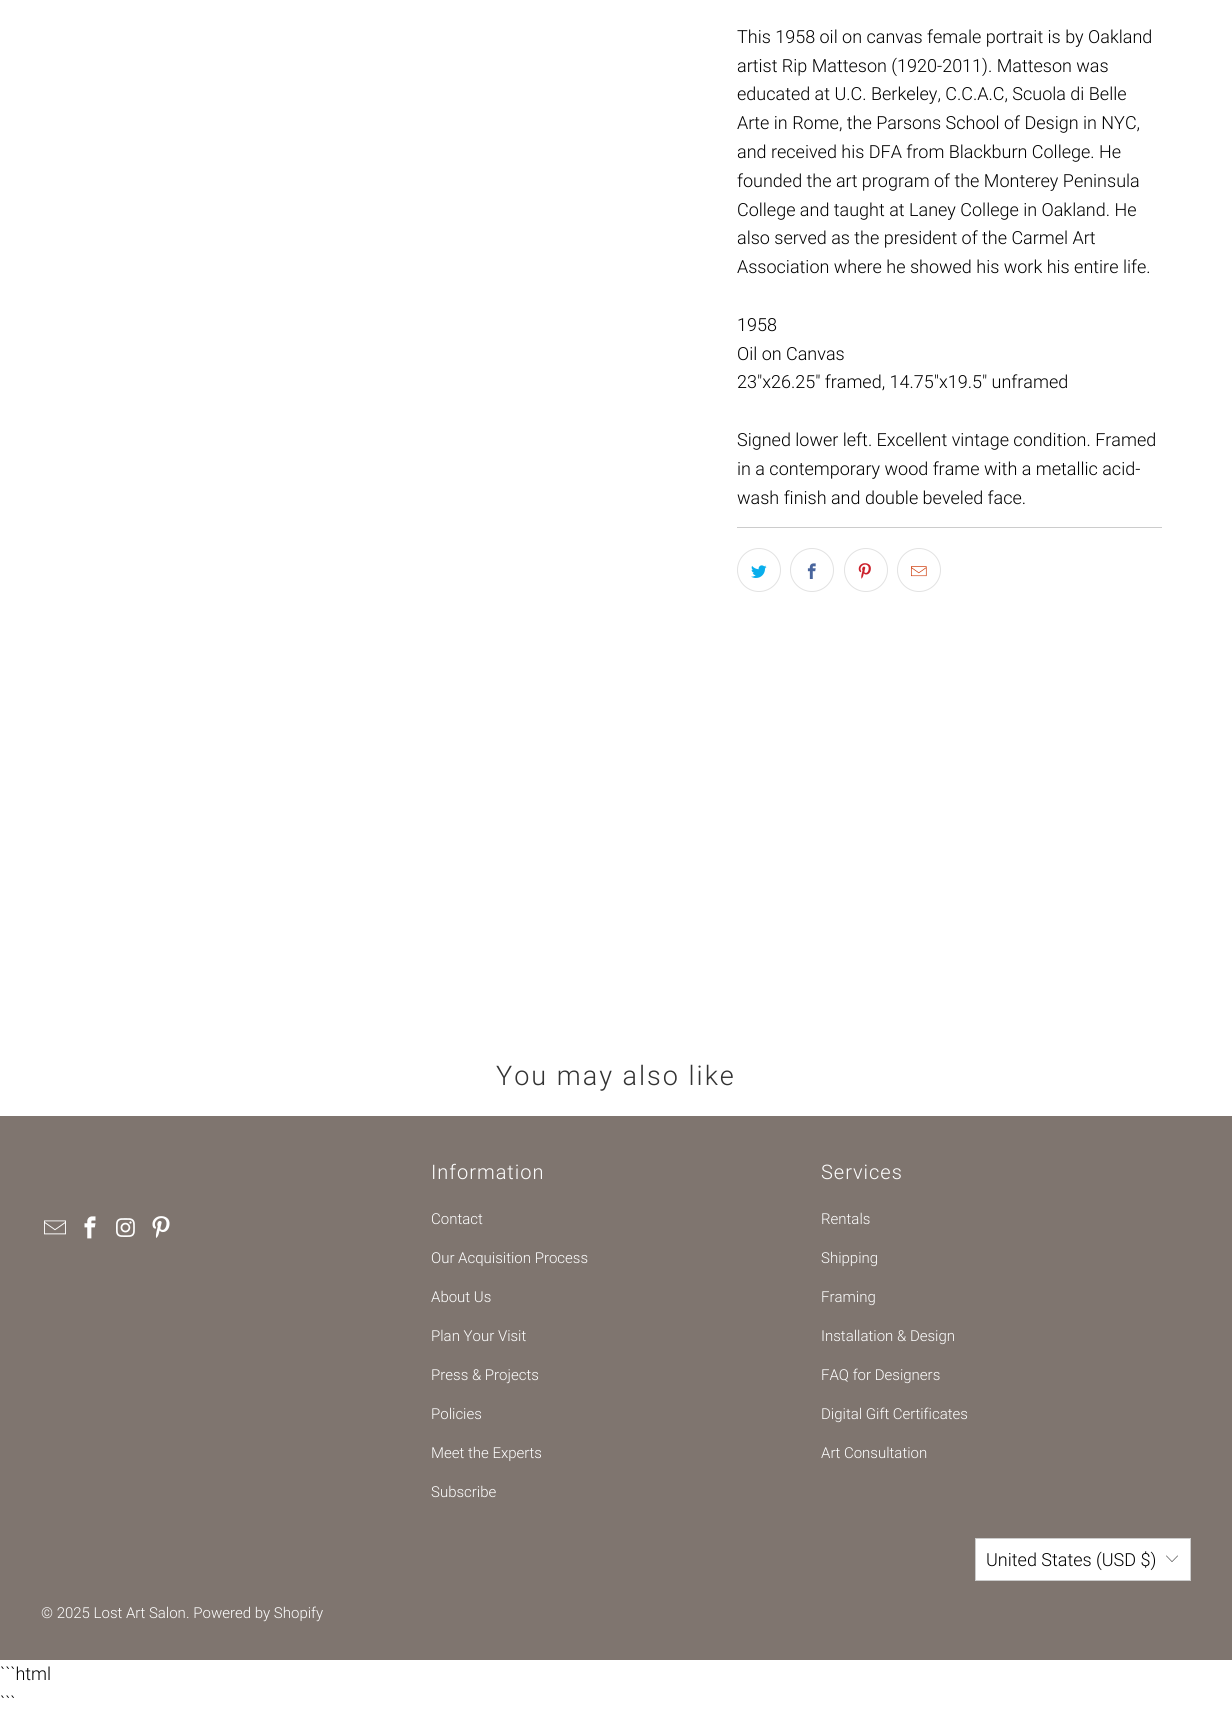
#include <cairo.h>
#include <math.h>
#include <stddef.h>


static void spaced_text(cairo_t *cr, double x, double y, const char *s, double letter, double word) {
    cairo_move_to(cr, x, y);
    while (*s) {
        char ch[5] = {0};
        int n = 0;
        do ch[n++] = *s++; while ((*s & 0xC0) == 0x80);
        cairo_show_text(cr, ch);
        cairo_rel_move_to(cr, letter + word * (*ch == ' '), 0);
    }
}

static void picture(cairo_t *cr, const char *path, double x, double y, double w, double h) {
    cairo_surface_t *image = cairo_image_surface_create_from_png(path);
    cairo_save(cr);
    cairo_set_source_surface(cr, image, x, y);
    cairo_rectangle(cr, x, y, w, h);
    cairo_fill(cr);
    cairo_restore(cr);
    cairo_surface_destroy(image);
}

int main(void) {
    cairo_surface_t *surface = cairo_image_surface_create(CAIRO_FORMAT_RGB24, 1232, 1716);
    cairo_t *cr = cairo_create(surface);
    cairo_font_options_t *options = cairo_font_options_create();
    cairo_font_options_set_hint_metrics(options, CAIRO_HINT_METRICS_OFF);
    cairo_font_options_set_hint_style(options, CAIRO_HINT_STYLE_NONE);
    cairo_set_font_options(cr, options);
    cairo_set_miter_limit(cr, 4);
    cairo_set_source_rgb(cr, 1, 1, 1);
    cairo_paint(cr);
    cairo_select_font_face(cr, "Roboto Light", CAIRO_FONT_SLANT_NORMAL, CAIRO_FONT_WEIGHT_NORMAL);
    cairo_set_font_size(cr, 18);
    cairo_set_source_rgb(cr, 0, 0, 0);
    cairo_move_to(cr, 737, 43);
    cairo_show_text(cr, "This 1958 oil on canvas female portrait is by Oakland");
    cairo_move_to(cr, 737, 72);
    cairo_show_text(cr, "artist Rip Matteson (1920-2011). Matteson was");
    cairo_move_to(cr, 737, 100);
    cairo_show_text(cr, "educated at U.C. Berkeley, C.C.A.C, Scuola di Belle");
    cairo_move_to(cr, 737, 129);
    cairo_show_text(cr, "Arte in Rome, the Parsons School of Design in NYC,");
    cairo_move_to(cr, 737, 158);
    cairo_show_text(cr, "and received his DFA from Blackburn College. He");
    cairo_move_to(cr, 737, 187);
    cairo_show_text(cr, "founded the art program of the Monterey Peninsula");
    cairo_move_to(cr, 737, 216);
    cairo_show_text(cr, "College and taught at Laney College in Oakland. He");
    cairo_move_to(cr, 737, 244);
    cairo_show_text(cr, "also served as the president of the Carmel Art");
    cairo_move_to(cr, 737, 273);
    cairo_show_text(cr, "Association where he showed his work his entire life.");
    cairo_move_to(cr, 737, 331);
    cairo_show_text(cr, "1958");
    cairo_move_to(cr, 737, 360);
    cairo_show_text(cr, "Oil on Canvas");
    cairo_move_to(cr, 737, 388);
    cairo_show_text(cr, "23\"x26.25\" framed, 14.75\"x19.5\" unframed");
    cairo_move_to(cr, 737, 446);
    cairo_show_text(cr, "Signed lower left. Excellent vintage condition. Framed");
    cairo_move_to(cr, 737, 475);
    cairo_show_text(cr, "in a contemporary wood frame with a metallic acid-");
    cairo_move_to(cr, 737, 504);
    cairo_show_text(cr, "wash finish and double beveled face.");
    cairo_set_source_rgb(cr, 0.8, 0.8, 0.8);
    cairo_rectangle(cr, 737, 527, 425, 1);
    cairo_fill(cr);
    cairo_arc(cr, 759, 570, 21.5, 0, 2 * M_PI);
    cairo_set_source_rgb(cr, 0.886, 0.886, 0.886);
    cairo_set_line_width(cr, 1);
    cairo_stroke(cr);
    picture(cr, "img1.png", 751, 565, 16, 13);
    cairo_arc(cr, 812, 570, 21.5, 0, 2 * M_PI);
    cairo_stroke(cr);
    picture(cr, "img2.png", 807, 563, 9, 16);
    cairo_arc(cr, 866, 570, 21.5, 0, 2 * M_PI);
    cairo_stroke(cr);
    picture(cr, "img3.png", 858, 563, 13, 16);
    cairo_arc(cr, 919, 570, 21.5, 0, 2 * M_PI);
    cairo_stroke(cr);
    picture(cr, "img4.png", 911, 566, 16, 11);
    cairo_set_font_size(cr, 27);
    cairo_set_source_rgb(cr, 0.2, 0.2, 0.2);
    spaced_text(cr, 496, 1085, "You may also like", 2, 0);
    cairo_set_source_rgb(cr, 0.498, 0.459, 0.435);
    cairo_rectangle(cr, 0, 1116, 1232, 544);
    cairo_fill(cr);
    picture(cr, "img5.png", 44, 1220, 22, 15);
    picture(cr, "img6.png", 84, 1216, 12, 23);
    picture(cr, "img7.png", 116, 1218, 19, 19);
    picture(cr, "img8.png", 152, 1216, 18, 22);
    cairo_set_font_size(cr, 20);
    cairo_set_source_rgb(cr, 1, 1, 1);
    spaced_text(cr, 431, 1179, "Information", 1, 0);
    cairo_set_font_size(cr, 15);
    cairo_move_to(cr, 431, 1224);
    cairo_show_text(cr, "Contact");
    cairo_move_to(cr, 431, 1263);
    cairo_show_text(cr, "Our Acquisition Process");
    cairo_move_to(cr, 431, 1302);
    cairo_show_text(cr, "About Us");
    cairo_move_to(cr, 431, 1341);
    cairo_show_text(cr, "Plan Your Visit");
    cairo_move_to(cr, 431, 1380);
    cairo_show_text(cr, "Press & Projects");
    cairo_move_to(cr, 431, 1419);
    cairo_show_text(cr, "Policies");
    cairo_move_to(cr, 431, 1458);
    cairo_show_text(cr, "Meet the Experts");
    cairo_move_to(cr, 431, 1497);
    cairo_show_text(cr, "Subscribe");
    cairo_set_font_size(cr, 20);
    spaced_text(cr, 821, 1179, "Services", 1, 0);
    cairo_set_font_size(cr, 15);
    cairo_move_to(cr, 821, 1224);
    cairo_show_text(cr, "Rentals");
    cairo_move_to(cr, 821, 1263);
    cairo_show_text(cr, "Shipping");
    cairo_move_to(cr, 821, 1302);
    cairo_show_text(cr, "Framing");
    cairo_move_to(cr, 821, 1341);
    cairo_show_text(cr, "Installation & Design");
    cairo_move_to(cr, 821, 1380);
    cairo_show_text(cr, "FAQ for Designers");
    cairo_move_to(cr, 821, 1419);
    cairo_show_text(cr, "Digital Gift Certificates");
    cairo_move_to(cr, 821, 1458);
    cairo_show_text(cr, "Art Consultation");
    cairo_rectangle(cr, 975.5, 1538.5, 215, 42);
    cairo_fill_preserve(cr);
    cairo_set_source_rgb(cr, 0.8, 0.8, 0.8);
    cairo_stroke(cr);
    cairo_set_font_size(cr, 18);
    cairo_set_source_rgb(cr, 0, 0, 0);
    cairo_move_to(cr, 986, 1566);
    cairo_show_text(cr, "United States (USD $)");
    picture(cr, "img9.png", 1166, 1555, 12, 7);
    cairo_set_font_size(cr, 15);
    cairo_set_source_rgb(cr, 1, 1, 1);
    cairo_move_to(cr, 41, 1618);
    cairo_show_text(cr, "© 2025 Lost Art Salon");
    cairo_move_to(cr, 186, 1618);
    cairo_show_text(cr, ". Powered by Shopify");
    cairo_set_font_size(cr, 18);
    cairo_set_source_rgb(cr, 0, 0, 0);
    cairo_move_to(cr, 0, 1680);
    cairo_show_text(cr, "```html");
    cairo_move_to(cr, 0, 1709);
    cairo_show_text(cr, "```");
    cairo_surface_write_to_png(surface, "page.png");
    cairo_font_options_destroy(options);
    cairo_destroy(cr);
    cairo_surface_destroy(surface);
    return 0;
}
